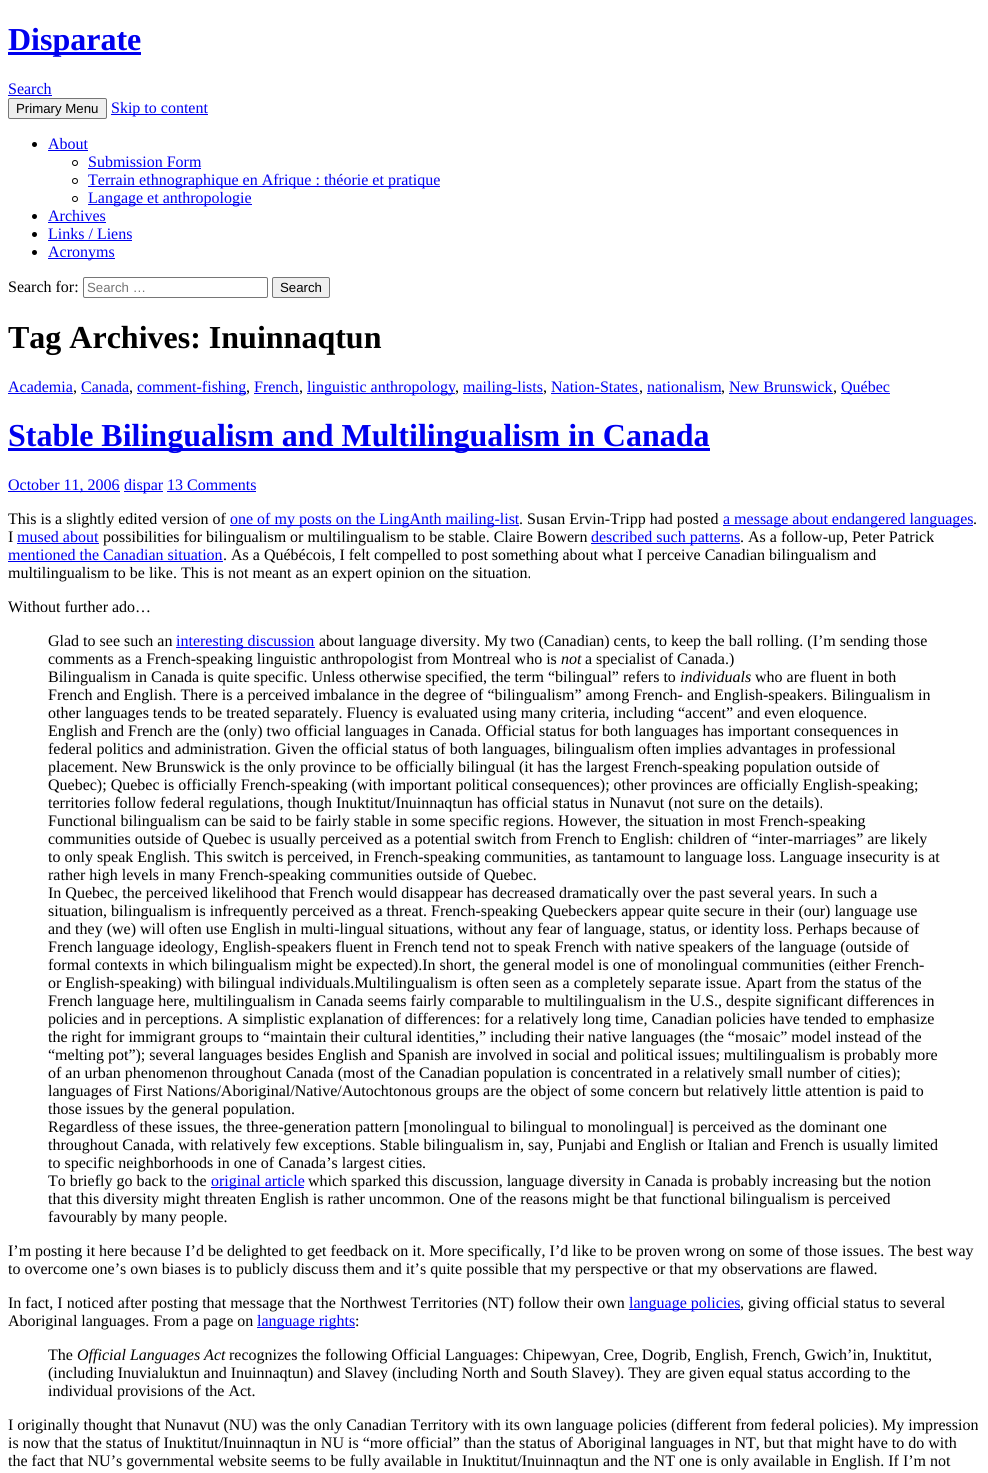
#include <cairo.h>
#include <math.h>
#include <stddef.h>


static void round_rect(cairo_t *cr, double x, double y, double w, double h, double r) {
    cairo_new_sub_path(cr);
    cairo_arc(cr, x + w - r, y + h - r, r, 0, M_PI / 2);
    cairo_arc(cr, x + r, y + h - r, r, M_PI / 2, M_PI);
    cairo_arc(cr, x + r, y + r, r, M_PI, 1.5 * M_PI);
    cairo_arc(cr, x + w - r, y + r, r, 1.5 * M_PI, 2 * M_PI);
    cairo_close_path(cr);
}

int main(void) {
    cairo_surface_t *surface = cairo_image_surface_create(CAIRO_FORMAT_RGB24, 988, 1473);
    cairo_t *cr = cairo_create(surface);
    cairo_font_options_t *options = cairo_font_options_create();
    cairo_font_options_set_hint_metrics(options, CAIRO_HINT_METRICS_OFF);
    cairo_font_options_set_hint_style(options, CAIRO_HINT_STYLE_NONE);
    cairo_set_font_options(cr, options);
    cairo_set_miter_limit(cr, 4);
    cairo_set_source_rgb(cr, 1, 1, 1);
    cairo_paint(cr);
    cairo_set_source_rgb(cr, 0, 0, 0.933);
    cairo_rectangle(cr, 8, 52, 133, 3);
    cairo_fill(cr);
    cairo_select_font_face(cr, "Liberation Serif", CAIRO_FONT_SLANT_NORMAL, CAIRO_FONT_WEIGHT_BOLD);
    cairo_set_font_size(cr, 32);
    cairo_move_to(cr, 8, 50);
    cairo_show_text(cr, "Disparate");
    cairo_select_font_face(cr, "Liberation Serif", CAIRO_FONT_SLANT_NORMAL, CAIRO_FONT_WEIGHT_NORMAL);
    cairo_set_font_size(cr, 16);
    cairo_move_to(cr, 8, 94);
    cairo_show_text(cr, "Search");
    cairo_rectangle(cr, 8, 95, 44, 1);
    cairo_fill(cr);
    cairo_set_source_rgb(cr, 0.937, 0.937, 0.937);
    round_rect(cr, 8.5, 98.5, 98, 20, 1.5);
    cairo_fill_preserve(cr);
    cairo_set_source_rgb(cr, 0.463, 0.463, 0.463);
    cairo_set_line_width(cr, 1);
    cairo_stroke(cr);
    cairo_select_font_face(cr, "Liberation Sans", CAIRO_FONT_SLANT_NORMAL, CAIRO_FONT_WEIGHT_NORMAL);
    cairo_set_font_size(cr, 13.25);
    cairo_set_source_rgb(cr, 0, 0, 0);
    cairo_move_to(cr, 16, 113);
    cairo_show_text(cr, "Primary Menu");
    cairo_set_source_rgb(cr, 0, 0, 0.933);
    cairo_rectangle(cr, 111, 114, 97, 1);
    cairo_fill(cr);
    cairo_select_font_face(cr, "Liberation Serif", CAIRO_FONT_SLANT_NORMAL, CAIRO_FONT_WEIGHT_NORMAL);
    cairo_set_font_size(cr, 16);
    cairo_move_to(cr, 111, 113);
    cairo_show_text(cr, "Skip to content");
    cairo_set_source_rgb(cr, 0, 0, 0);
    cairo_new_path(cr);
    cairo_arc(cr, 34.5, 144.5, 2.5, 0, 2 * M_PI);
    cairo_fill(cr);
    cairo_set_source_rgb(cr, 0, 0, 0.933);
    cairo_move_to(cr, 48, 149);
    cairo_show_text(cr, "About");
    cairo_rectangle(cr, 48, 150, 40, 1);
    cairo_fill(cr);
    cairo_arc(cr, 75, 163, 2.5, 0, 2 * M_PI);
    cairo_set_source_rgb(cr, 0, 0, 0);
    cairo_stroke(cr);
    cairo_set_source_rgb(cr, 0, 0, 0.933);
    cairo_move_to(cr, 88, 167);
    cairo_show_text(cr, "Submission Form");
    cairo_rectangle(cr, 88, 168, 113, 1);
    cairo_fill(cr);
    cairo_arc(cr, 75, 181, 2.5, 0, 2 * M_PI);
    cairo_set_source_rgb(cr, 0, 0, 0);
    cairo_stroke(cr);
    cairo_set_source_rgb(cr, 0, 0, 0.933);
    cairo_rectangle(cr, 88, 186, 352, 1);
    cairo_fill(cr);
    cairo_move_to(cr, 88, 185);
    cairo_show_text(cr, "Terrain ethnographique en Afrique : théorie et pratique");
    cairo_new_path(cr);
    cairo_arc(cr, 75, 199, 2.5, 0, 2 * M_PI);
    cairo_set_source_rgb(cr, 0, 0, 0);
    cairo_stroke(cr);
    cairo_set_source_rgb(cr, 0, 0, 0.933);
    cairo_rectangle(cr, 88, 204, 164, 1);
    cairo_fill(cr);
    cairo_move_to(cr, 88, 203);
    cairo_show_text(cr, "Langage et anthropologie");
    cairo_set_source_rgb(cr, 0, 0, 0);
    cairo_new_path(cr);
    cairo_arc(cr, 34.5, 216.5, 2.5, 0, 2 * M_PI);
    cairo_fill(cr);
    cairo_set_source_rgb(cr, 0, 0, 0.933);
    cairo_move_to(cr, 48, 221);
    cairo_show_text(cr, "Archives");
    cairo_rectangle(cr, 48, 222, 58, 1);
    cairo_fill(cr);
    cairo_set_source_rgb(cr, 0, 0, 0);
    cairo_arc(cr, 34.5, 234.5, 2.5, 0, 2 * M_PI);
    cairo_fill(cr);
    cairo_set_source_rgb(cr, 0, 0, 0.933);
    cairo_move_to(cr, 48, 239);
    cairo_show_text(cr, "Links / Liens");
    cairo_rectangle(cr, 48, 240, 84, 1);
    cairo_fill(cr);
    cairo_set_source_rgb(cr, 0, 0, 0);
    cairo_arc(cr, 34.5, 252.5, 2.5, 0, 2 * M_PI);
    cairo_fill(cr);
    cairo_set_source_rgb(cr, 0, 0, 0.933);
    cairo_rectangle(cr, 48, 258, 67, 1);
    cairo_fill(cr);
    cairo_move_to(cr, 48, 257);
    cairo_show_text(cr, "Acronyms");
    cairo_set_source_rgb(cr, 0, 0, 0);
    cairo_move_to(cr, 8, 292);
    cairo_show_text(cr, "Search for:");
    round_rect(cr, 83.5, 277.5, 184, 20, 1.5);
    cairo_set_source_rgb(cr, 0.463, 0.463, 0.463);
    cairo_stroke(cr);
    cairo_select_font_face(cr, "Liberation Sans", CAIRO_FONT_SLANT_NORMAL, CAIRO_FONT_WEIGHT_NORMAL);
    cairo_set_font_size(cr, 13.25);
    cairo_set_source_rgb(cr, 0.459, 0.459, 0.459);
    cairo_move_to(cr, 87, 292);
    cairo_show_text(cr, "Search …");
    cairo_set_source_rgb(cr, 0.937, 0.937, 0.937);
    round_rect(cr, 272.5, 277.5, 57, 20, 1.5);
    cairo_fill_preserve(cr);
    cairo_set_source_rgb(cr, 0.463, 0.463, 0.463);
    cairo_stroke(cr);
    cairo_set_source_rgb(cr, 0, 0, 0);
    cairo_move_to(cr, 280, 292);
    cairo_show_text(cr, "Search");
    cairo_select_font_face(cr, "Liberation Serif", CAIRO_FONT_SLANT_NORMAL, CAIRO_FONT_WEIGHT_BOLD);
    cairo_set_font_size(cr, 32);
    cairo_move_to(cr, 8, 348);
    cairo_show_text(cr, "Tag Archives: Inuinnaqtun");
    cairo_select_font_face(cr, "Liberation Serif", CAIRO_FONT_SLANT_NORMAL, CAIRO_FONT_WEIGHT_NORMAL);
    cairo_set_font_size(cr, 16);
    cairo_set_source_rgb(cr, 0, 0, 0.933);
    cairo_move_to(cr, 8, 392);
    cairo_show_text(cr, "Academia");
    cairo_set_source_rgb(cr, 0, 0, 0);
    cairo_move_to(cr, 73, 392);
    cairo_show_text(cr, ",");
    cairo_set_source_rgb(cr, 0, 0, 0.933);
    cairo_rectangle(cr, 8, 393, 65, 1);
    cairo_fill(cr);
    cairo_move_to(cr, 81, 392);
    cairo_show_text(cr, "Canada");
    cairo_set_source_rgb(cr, 0, 0, 0);
    cairo_move_to(cr, 129, 392);
    cairo_show_text(cr, ",");
    cairo_set_source_rgb(cr, 0, 0, 0.933);
    cairo_rectangle(cr, 81, 393, 48, 1);
    cairo_fill(cr);
    cairo_rectangle(cr, 137, 393, 109, 1);
    cairo_fill(cr);
    cairo_move_to(cr, 137, 392);
    cairo_show_text(cr, "comment-fishing");
    cairo_set_source_rgb(cr, 0, 0, 0);
    cairo_move_to(cr, 246, 392);
    cairo_show_text(cr, ",");
    cairo_set_source_rgb(cr, 0, 0, 0.933);
    cairo_move_to(cr, 254, 392);
    cairo_show_text(cr, "French");
    cairo_set_source_rgb(cr, 0, 0, 0);
    cairo_move_to(cr, 299, 392);
    cairo_show_text(cr, ",");
    cairo_set_source_rgb(cr, 0, 0, 0.933);
    cairo_rectangle(cr, 254, 393, 45, 1);
    cairo_fill(cr);
    cairo_rectangle(cr, 307, 393, 148, 1);
    cairo_fill(cr);
    cairo_move_to(cr, 307, 392);
    cairo_show_text(cr, "linguistic anthropology");
    cairo_set_source_rgb(cr, 0, 0, 0);
    cairo_move_to(cr, 455, 392);
    cairo_show_text(cr, ",");
    cairo_set_source_rgb(cr, 0, 0, 0.933);
    cairo_rectangle(cr, 463, 393, 80, 1);
    cairo_fill(cr);
    cairo_move_to(cr, 463, 392);
    cairo_show_text(cr, "mailing-lists");
    cairo_set_source_rgb(cr, 0, 0, 0);
    cairo_move_to(cr, 543, 392);
    cairo_show_text(cr, ",");
    cairo_set_source_rgb(cr, 0, 0, 0.933);
    cairo_move_to(cr, 551, 392);
    cairo_show_text(cr, "Nation-States");
    cairo_set_source_rgb(cr, 0, 0, 0);
    cairo_move_to(cr, 639, 392);
    cairo_show_text(cr, ",");
    cairo_set_source_rgb(cr, 0, 0, 0.933);
    cairo_rectangle(cr, 551, 393, 88, 1);
    cairo_fill(cr);
    cairo_move_to(cr, 647, 392);
    cairo_show_text(cr, "nationalism");
    cairo_set_source_rgb(cr, 0, 0, 0);
    cairo_move_to(cr, 721, 392);
    cairo_show_text(cr, ",");
    cairo_set_source_rgb(cr, 0, 0, 0.933);
    cairo_rectangle(cr, 647, 393, 74, 1);
    cairo_fill(cr);
    cairo_move_to(cr, 729, 392);
    cairo_show_text(cr, "New Brunswick");
    cairo_set_source_rgb(cr, 0, 0, 0);
    cairo_move_to(cr, 833, 392);
    cairo_show_text(cr, ",");
    cairo_set_source_rgb(cr, 0, 0, 0.933);
    cairo_rectangle(cr, 729, 393, 104, 1);
    cairo_fill(cr);
    cairo_rectangle(cr, 841, 393, 49, 1);
    cairo_fill(cr);
    cairo_move_to(cr, 841, 392);
    cairo_show_text(cr, "Québec");
    cairo_rectangle(cr, 8, 448, 702, 3);
    cairo_fill(cr);
    cairo_select_font_face(cr, "Liberation Serif", CAIRO_FONT_SLANT_NORMAL, CAIRO_FONT_WEIGHT_BOLD);
    cairo_set_font_size(cr, 32);
    cairo_move_to(cr, 8, 446);
    cairo_show_text(cr, "Stable Bilingualism and Multilingualism in Canada");
    cairo_rectangle(cr, 8, 491, 112, 1);
    cairo_fill(cr);
    cairo_select_font_face(cr, "Liberation Serif", CAIRO_FONT_SLANT_NORMAL, CAIRO_FONT_WEIGHT_NORMAL);
    cairo_set_font_size(cr, 16);
    cairo_move_to(cr, 8, 490);
    cairo_show_text(cr, "October 11, 2006");
    cairo_rectangle(cr, 124, 491, 39, 1);
    cairo_fill(cr);
    cairo_move_to(cr, 124, 490);
    cairo_show_text(cr, "dispar 13 Comments");
    cairo_rectangle(cr, 167, 491, 89, 1);
    cairo_fill(cr);
    cairo_set_source_rgb(cr, 0, 0, 0);
    cairo_move_to(cr, 8, 524);
    cairo_show_text(cr, "This is a slightly edited version of");
    cairo_set_source_rgb(cr, 0, 0, 0.933);
    cairo_rectangle(cr, 230, 525, 289, 1);
    cairo_fill(cr);
    cairo_move_to(cr, 230, 524);
    cairo_show_text(cr, "one of my posts on the LingAnth mailing-list");
    cairo_set_source_rgb(cr, 0, 0, 0);
    cairo_move_to(cr, 519, 524);
    cairo_show_text(cr, ". Susan Ervin-Tripp had posted");
    cairo_set_source_rgb(cr, 0, 0, 0.933);
    cairo_rectangle(cr, 723, 525, 250, 1);
    cairo_fill(cr);
    cairo_move_to(cr, 723, 524);
    cairo_show_text(cr, "a message about endangered languages");
    cairo_set_source_rgb(cr, 0, 0, 0);
    cairo_move_to(cr, 973, 524);
    cairo_show_text(cr, ".");
    cairo_move_to(cr, 8, 542);
    cairo_show_text(cr, "I");
    cairo_set_source_rgb(cr, 0, 0, 0.933);
    cairo_move_to(cr, 17, 542);
    cairo_show_text(cr, "mused about");
    cairo_rectangle(cr, 17, 543, 82, 1);
    cairo_fill(cr);
    cairo_set_source_rgb(cr, 0, 0, 0);
    cairo_move_to(cr, 103, 542);
    cairo_show_text(cr, "possibilities for bilingualism or multilingualism to be stable. Claire Bowern");
    cairo_set_source_rgb(cr, 0, 0, 0.933);
    cairo_rectangle(cr, 591, 543, 149, 1);
    cairo_fill(cr);
    cairo_move_to(cr, 591, 542);
    cairo_show_text(cr, "described such patterns");
    cairo_set_source_rgb(cr, 0, 0, 0);
    cairo_move_to(cr, 740, 542);
    cairo_show_text(cr, ". As a follow-up, Peter Patrick");
    cairo_set_source_rgb(cr, 0, 0, 0.933);
    cairo_move_to(cr, 8, 560);
    cairo_show_text(cr, "mentioned the Canadian situation");
    cairo_rectangle(cr, 8, 561, 215, 1);
    cairo_fill(cr);
    cairo_set_source_rgb(cr, 0, 0, 0);
    cairo_move_to(cr, 223, 560);
    cairo_show_text(cr, ". As a Québécois, I felt compelled to post something about what I perceive Canadian bilingualism and");
    cairo_move_to(cr, 8, 578);
    cairo_show_text(cr, "multilingualism to be like. This is not meant as an expert opinion on the situation.");
    cairo_move_to(cr, 8, 612);
    cairo_show_text(cr, "Without further ado…");
    cairo_move_to(cr, 48, 646);
    cairo_show_text(cr, "Glad to see such an");
    cairo_set_source_rgb(cr, 0, 0, 0.933);
    cairo_rectangle(cr, 176, 647, 139, 1);
    cairo_fill(cr);
    cairo_move_to(cr, 176, 646);
    cairo_show_text(cr, "interesting discussion");
    cairo_set_source_rgb(cr, 0, 0, 0);
    cairo_move_to(cr, 319, 646);
    cairo_show_text(cr, "about language diversity. My two (Canadian) cents, to keep the ball rolling. (I’m sending those");
    cairo_move_to(cr, 48, 664);
    cairo_show_text(cr, "comments as a French-speaking linguistic anthropologist from Montreal who is");
    cairo_select_font_face(cr, "Liberation Serif", CAIRO_FONT_SLANT_ITALIC, CAIRO_FONT_WEIGHT_NORMAL);
    cairo_move_to(cr, 561, 664);
    cairo_show_text(cr, "not");
    cairo_select_font_face(cr, "Liberation Serif", CAIRO_FONT_SLANT_NORMAL, CAIRO_FONT_WEIGHT_NORMAL);
    cairo_move_to(cr, 585, 664);
    cairo_show_text(cr, "a specialist of Canada.)");
    cairo_move_to(cr, 48, 682);
    cairo_show_text(cr, "Bilingualism in Canada is quite specific. Unless otherwise specified, the term “bilingual” refers to");
    cairo_select_font_face(cr, "Liberation Serif", CAIRO_FONT_SLANT_ITALIC, CAIRO_FONT_WEIGHT_NORMAL);
    cairo_move_to(cr, 680, 682);
    cairo_show_text(cr, "individuals");
    cairo_select_font_face(cr, "Liberation Serif", CAIRO_FONT_SLANT_NORMAL, CAIRO_FONT_WEIGHT_NORMAL);
    cairo_move_to(cr, 755, 682);
    cairo_show_text(cr, "who are fluent in both");
    cairo_move_to(cr, 48, 700);
    cairo_show_text(cr, "French and English. There is a perceived imbalance in the degree of “bilingualism” among French- and English-speakers. Bilingualism in");
    cairo_move_to(cr, 48, 718);
    cairo_show_text(cr, "other languages tends to be treated separately. Fluency is evaluated using many criteria, including “accent” and even eloquence.");
    cairo_move_to(cr, 48, 736);
    cairo_show_text(cr, "English and French are the (only) two official languages in Canada. Official status for both languages has important consequences in");
    cairo_move_to(cr, 48, 754);
    cairo_show_text(cr, "federal politics and administration. Given the official status of both languages, bilingualism often implies advantages in professional");
    cairo_move_to(cr, 48, 772);
    cairo_show_text(cr, "placement. New Brunswick is the only province to be officially bilingual (it has the largest French-speaking population outside of");
    cairo_move_to(cr, 48, 790);
    cairo_show_text(cr, "Quebec); Quebec is officially French-speaking (with important political consequences); other provinces are officially English-speaking;");
    cairo_move_to(cr, 48, 808);
    cairo_show_text(cr, "territories follow federal regulations, though Inuktitut/Inuinnaqtun has official status in Nunavut (not sure on the details).");
    cairo_move_to(cr, 48, 826);
    cairo_show_text(cr, "Functional bilingualism can be said to be fairly stable in some specific regions. However, the situation in most French-speaking");
    cairo_move_to(cr, 48, 844);
    cairo_show_text(cr, "communities outside of Quebec is usually perceived as a potential switch from French to English: children of “inter-marriages” are likely");
    cairo_move_to(cr, 48, 862);
    cairo_show_text(cr, "to only speak English. This switch is perceived, in French-speaking communities, as tantamount to language loss. Language insecurity is at");
    cairo_move_to(cr, 48, 880);
    cairo_show_text(cr, "rather high levels in many French-speaking communities outside of Quebec.");
    cairo_move_to(cr, 48, 898);
    cairo_show_text(cr, "In Quebec, the perceived likelihood that French would disappear has decreased dramatically over the past several years. In such a");
    cairo_move_to(cr, 48, 916);
    cairo_show_text(cr, "situation, bilingualism is infrequently perceived as a threat. French-speaking Quebeckers appear quite secure in their (our) language use");
    cairo_move_to(cr, 48, 934);
    cairo_show_text(cr, "and they (we) will often use English in multi-lingual situations, without any fear of language, status, or identity loss. Perhaps because of");
    cairo_move_to(cr, 48, 952);
    cairo_show_text(cr, "French language ideology, English-speakers fluent in French tend not to speak French with native speakers of the language (outside of");
    cairo_move_to(cr, 48, 970);
    cairo_show_text(cr, "formal contexts in which bilingualism might be expected).In short, the general model is one of monolingual communities (either French-");
    cairo_move_to(cr, 48, 988);
    cairo_show_text(cr, "or English-speaking) with bilingual individuals.Multilingualism is often seen as a completely separate issue. Apart from the status of the");
    cairo_move_to(cr, 48, 1006);
    cairo_show_text(cr, "French language here, multilingualism in Canada seems fairly comparable to multilingualism in the U.S., despite significant differences in");
    cairo_move_to(cr, 48, 1024);
    cairo_show_text(cr, "policies and in perceptions. A simplistic explanation of differences: for a relatively long time, Canadian policies have tended to emphasize");
    cairo_move_to(cr, 48, 1042);
    cairo_show_text(cr, "the right for immigrant groups to “maintain their cultural identities,” including their native languages (the “mosaic” model instead of the");
    cairo_move_to(cr, 48, 1060);
    cairo_show_text(cr, "“melting pot”); several languages besides English and Spanish are involved in social and political issues; multilingualism is probably more");
    cairo_move_to(cr, 48, 1078);
    cairo_show_text(cr, "of an urban phenomenon throughout Canada (most of the Canadian population is concentrated in a relatively small number of cities);");
    cairo_move_to(cr, 48, 1096);
    cairo_show_text(cr, "languages of First Nations/Aboriginal/Native/Autochtonous groups are the object of some concern but relatively little attention is paid to");
    cairo_move_to(cr, 48, 1114);
    cairo_show_text(cr, "those issues by the general population.");
    cairo_move_to(cr, 48, 1132);
    cairo_show_text(cr, "Regardless of these issues, the three-generation pattern [monolingual to bilingual to monolingual] is perceived as the dominant one");
    cairo_move_to(cr, 48, 1150);
    cairo_show_text(cr, "throughout Canada, with relatively few exceptions. Stable bilingualism in, say, Punjabi and English or Italian and French is usually limited");
    cairo_move_to(cr, 48, 1168);
    cairo_show_text(cr, "to specific neighborhoods in one of Canada’s largest cities.");
    cairo_move_to(cr, 48, 1186);
    cairo_show_text(cr, "To briefly go back to the");
    cairo_set_source_rgb(cr, 0, 0, 0.933);
    cairo_rectangle(cr, 211, 1187, 93, 1);
    cairo_fill(cr);
    cairo_move_to(cr, 211, 1186);
    cairo_show_text(cr, "original article");
    cairo_set_source_rgb(cr, 0, 0, 0);
    cairo_move_to(cr, 308, 1186);
    cairo_show_text(cr, "which sparked this discussion, language diversity in Canada is probably increasing but the notion");
    cairo_move_to(cr, 48, 1204);
    cairo_show_text(cr, "that this diversity might threaten English is rather uncommon. One of the reasons might be that functional bilingualism is perceived");
    cairo_move_to(cr, 48, 1222);
    cairo_show_text(cr, "favourably by many people.");
    cairo_move_to(cr, 8, 1256);
    cairo_show_text(cr, "I’m posting it here because I’d be delighted to get feedback on it. More specifically, I’d like to be proven wrong on some of those issues. The best way");
    cairo_move_to(cr, 8, 1274);
    cairo_show_text(cr, "to overcome one’s own biases is to publicly discuss them and it’s quite possible that my perspective or that my observations are flawed.");
    cairo_move_to(cr, 8, 1308);
    cairo_show_text(cr, "In fact, I noticed after posting that message that the Northwest Territories (NT) follow their own");
    cairo_set_source_rgb(cr, 0, 0, 0.933);
    cairo_rectangle(cr, 629, 1309, 111, 1);
    cairo_fill(cr);
    cairo_move_to(cr, 629, 1308);
    cairo_show_text(cr, "language policies");
    cairo_set_source_rgb(cr, 0, 0, 0);
    cairo_move_to(cr, 740, 1308);
    cairo_show_text(cr, ", giving official status to several");
    cairo_move_to(cr, 8, 1326);
    cairo_show_text(cr, "Aboriginal languages. From a page on");
    cairo_set_source_rgb(cr, 0, 0, 0.933);
    cairo_rectangle(cr, 257, 1327, 98, 1);
    cairo_fill(cr);
    cairo_move_to(cr, 257, 1326);
    cairo_show_text(cr, "language rights");
    cairo_set_source_rgb(cr, 0, 0, 0);
    cairo_move_to(cr, 355, 1326);
    cairo_show_text(cr, ":");
    cairo_move_to(cr, 48, 1360);
    cairo_show_text(cr, "The");
    cairo_select_font_face(cr, "Liberation Serif", CAIRO_FONT_SLANT_ITALIC, CAIRO_FONT_WEIGHT_NORMAL);
    cairo_move_to(cr, 77, 1360);
    cairo_show_text(cr, "Official Languages Act");
    cairo_select_font_face(cr, "Liberation Serif", CAIRO_FONT_SLANT_NORMAL, CAIRO_FONT_WEIGHT_NORMAL);
    cairo_move_to(cr, 229, 1360);
    cairo_show_text(cr, "recognizes the following Official Languages: Chipewyan, Cree, Dogrib, English, French, Gwich’in, Inuktitut,");
    cairo_move_to(cr, 48, 1378);
    cairo_show_text(cr, "(including Inuvialuktun and Inuinnaqtun) and Slavey (including North and South Slavey). They are given equal status according to the");
    cairo_move_to(cr, 48, 1396);
    cairo_show_text(cr, "individual provisions of the Act.");
    cairo_move_to(cr, 8, 1430);
    cairo_show_text(cr, "I originally thought that Nunavut (NU) was the only Canadian Territory with its own language policies (different from federal policies). My impression");
    cairo_move_to(cr, 8, 1448);
    cairo_show_text(cr, "is now that the status of Inuktitut/Inuinnaqtun in NU is “more official” than the status of Aboriginal languages in NT, but that might have to do with");
    cairo_move_to(cr, 8, 1466);
    cairo_show_text(cr, "the fact that NU’s governmental website seems to be fully available in Inuktitut/Inuinnaqtun and the NT one is only available in English. If I’m not");
    cairo_surface_write_to_png(surface, "page.png");
    cairo_font_options_destroy(options);
    cairo_destroy(cr);
    cairo_surface_destroy(surface);
    return 0;
}
